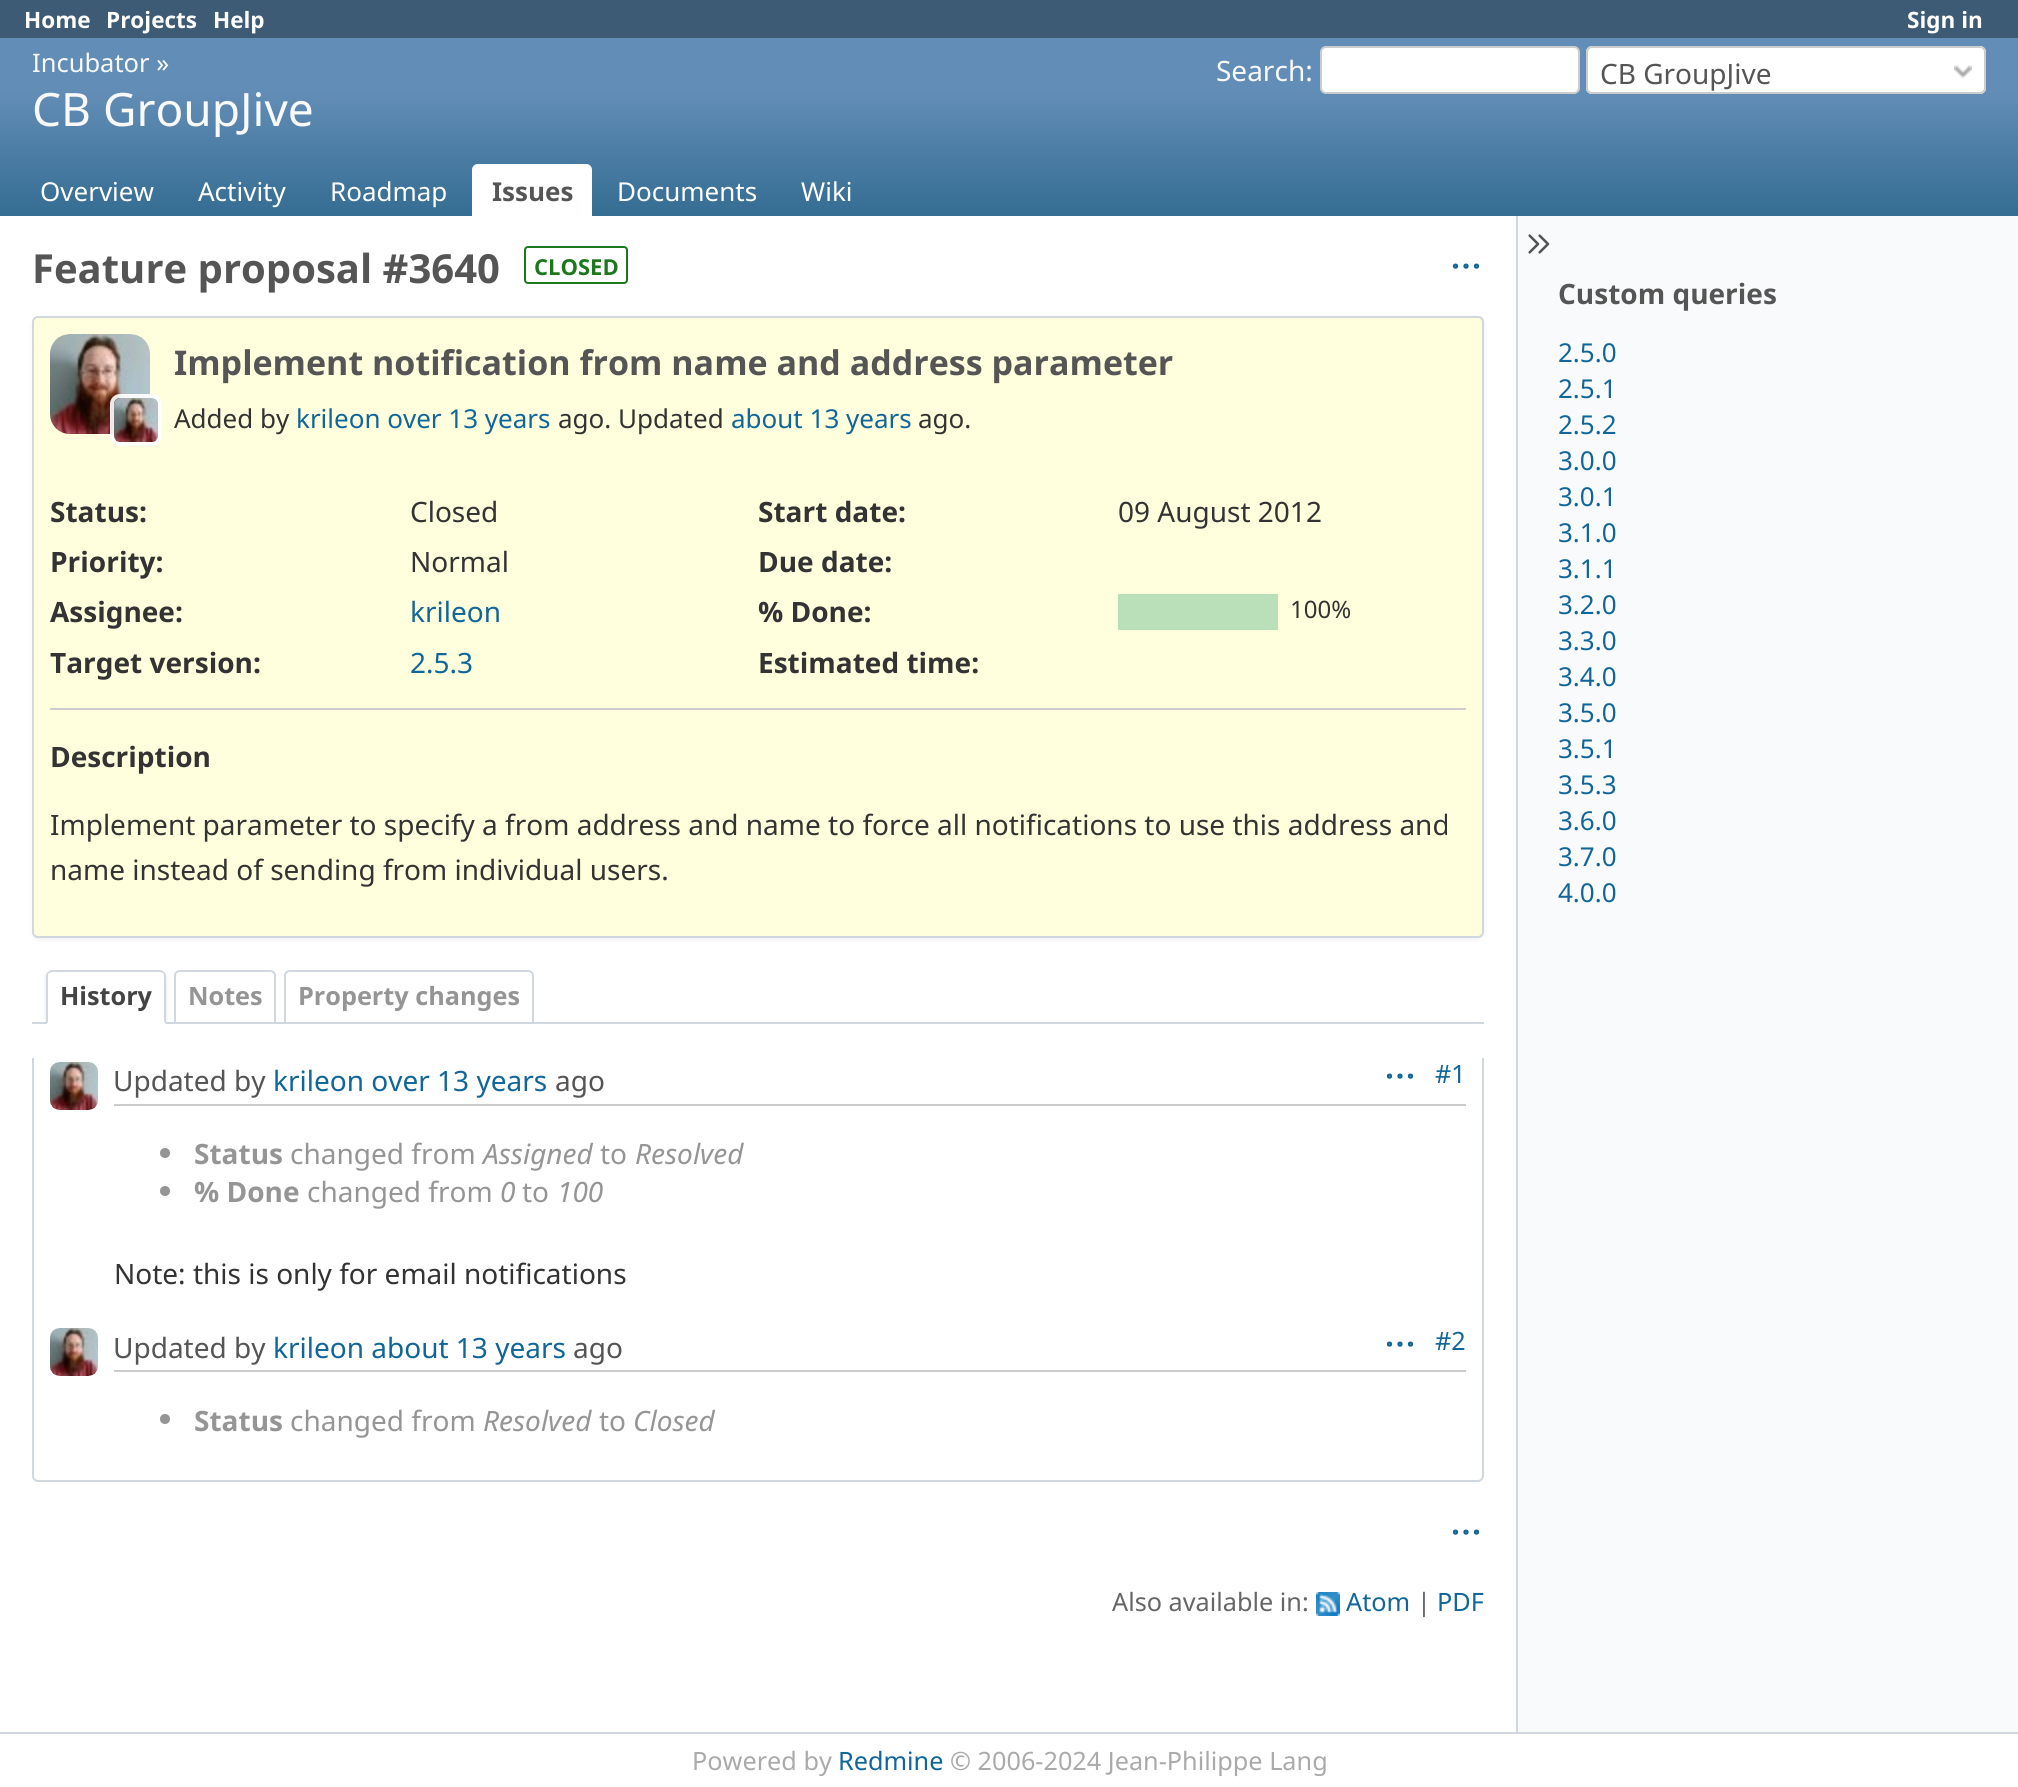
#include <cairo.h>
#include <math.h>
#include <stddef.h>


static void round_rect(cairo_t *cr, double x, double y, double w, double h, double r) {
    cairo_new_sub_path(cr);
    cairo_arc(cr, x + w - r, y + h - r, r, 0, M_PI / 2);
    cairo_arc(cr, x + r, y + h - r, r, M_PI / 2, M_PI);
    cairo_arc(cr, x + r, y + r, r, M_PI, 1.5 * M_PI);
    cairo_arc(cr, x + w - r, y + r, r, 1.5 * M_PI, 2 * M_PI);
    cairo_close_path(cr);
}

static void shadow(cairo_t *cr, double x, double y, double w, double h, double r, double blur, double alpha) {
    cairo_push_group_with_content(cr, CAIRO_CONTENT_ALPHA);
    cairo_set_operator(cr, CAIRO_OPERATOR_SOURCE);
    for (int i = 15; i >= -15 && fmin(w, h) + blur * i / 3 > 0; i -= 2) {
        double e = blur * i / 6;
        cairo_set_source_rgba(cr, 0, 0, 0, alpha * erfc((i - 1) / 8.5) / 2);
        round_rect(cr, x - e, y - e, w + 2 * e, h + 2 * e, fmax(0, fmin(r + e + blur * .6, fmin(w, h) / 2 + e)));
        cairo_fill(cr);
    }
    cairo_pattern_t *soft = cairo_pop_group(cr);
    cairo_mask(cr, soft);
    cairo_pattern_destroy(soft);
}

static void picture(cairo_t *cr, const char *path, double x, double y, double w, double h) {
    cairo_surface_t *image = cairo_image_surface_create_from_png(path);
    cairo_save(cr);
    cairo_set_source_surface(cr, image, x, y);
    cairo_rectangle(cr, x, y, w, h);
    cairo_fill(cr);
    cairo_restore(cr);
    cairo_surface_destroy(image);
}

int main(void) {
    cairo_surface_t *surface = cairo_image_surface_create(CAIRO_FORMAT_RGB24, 2018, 1787);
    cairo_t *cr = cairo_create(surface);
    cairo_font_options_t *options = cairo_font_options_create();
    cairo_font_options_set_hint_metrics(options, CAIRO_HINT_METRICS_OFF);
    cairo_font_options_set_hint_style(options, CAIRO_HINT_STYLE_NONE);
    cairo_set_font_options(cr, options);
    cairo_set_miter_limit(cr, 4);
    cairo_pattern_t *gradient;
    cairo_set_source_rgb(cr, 1, 1, 1);
    cairo_paint(cr);
    cairo_set_source_rgb(cr, 0.243, 0.357, 0.463);
    cairo_rectangle(cr, 0, 0, 2018, 38);
    cairo_fill(cr);
    cairo_select_font_face(cr, "Noto Sans", CAIRO_FONT_SLANT_NORMAL, CAIRO_FONT_WEIGHT_BOLD);
    cairo_set_font_size(cr, 22.5);
    cairo_set_source_rgb(cr, 1, 1, 1);
    cairo_move_to(cr, 24, 28);
    cairo_show_text(cr, "Home");
    cairo_move_to(cr, 106, 28);
    cairo_show_text(cr, "Projects");
    cairo_move_to(cr, 213, 28);
    cairo_show_text(cr, "Help");
    cairo_move_to(cr, 1907, 28);
    cairo_show_text(cr, "Sign in");
    gradient = cairo_pattern_create_linear(1009, 38, 1009, 216);
    cairo_pattern_add_color_stop_rgba(gradient, 0.3, 0.384, 0.553, 0.714, 1);
    cairo_pattern_add_color_stop_rgba(gradient, 1, 0.208, 0.427, 0.573, 1);
    cairo_set_source(cr, gradient);
    cairo_pattern_destroy(gradient);
    cairo_rectangle(cr, 0, 38, 2018, 178);
    cairo_fill(cr);
    cairo_select_font_face(cr, "Noto Sans", CAIRO_FONT_SLANT_NORMAL, CAIRO_FONT_WEIGHT_NORMAL);
    cairo_set_font_size(cr, 25.5);
    cairo_set_source_rgb(cr, 0.973, 0.973, 0.973);
    cairo_move_to(cr, 32, 72);
    cairo_show_text(cr, "Incubator »");
    cairo_set_font_size(cr, 46);
    cairo_move_to(cr, 32, 126);
    cairo_show_text(cr, "CB GroupJive");
    cairo_set_font_size(cr, 28);
    cairo_move_to(cr, 1216, 81);
    cairo_show_text(cr, "Search:");
    cairo_set_source_rgb(cr, 1, 1, 1);
    round_rect(cr, 1321, 47, 258, 46, 5);
    cairo_fill_preserve(cr);
    cairo_set_source_rgb(cr, 0.8, 0.8, 0.8);
    cairo_stroke(cr);
    cairo_set_source_rgb(cr, 1, 1, 1);
    round_rect(cr, 1586, 46, 400, 48, 6);
    cairo_fill(cr);
    picture(cr, "img1.png", 1954, 65, 18, 14);
    round_rect(cr, 1587, 47, 398, 46, 5);
    cairo_set_source_rgb(cr, 0.8, 0.8, 0.8);
    cairo_stroke(cr);
    cairo_set_source_rgb(cr, 0.333, 0.333, 0.333);
    cairo_move_to(cr, 1600, 84);
    cairo_show_text(cr, "CB GroupJive");
    cairo_set_font_size(cr, 26);
    cairo_set_source_rgb(cr, 1, 1, 1);
    cairo_move_to(cr, 40, 201);
    cairo_show_text(cr, "Overview");
    cairo_move_to(cr, 198, 201);
    cairo_show_text(cr, "Activity");
    cairo_move_to(cr, 330, 201);
    cairo_show_text(cr, "Roadmap");
    cairo_new_path(cr);
    cairo_move_to(cr, 478, 164);
    cairo_line_to(cr, 586, 164);
    cairo_curve_to(cr, 589.5, 164, 592, 166.5, 592, 170);
    cairo_line_to(cr, 592, 216);
    cairo_line_to(cr, 472, 216);
    cairo_line_to(cr, 472, 170);
    cairo_curve_to(cr, 472, 166.5, 474.5, 164, 478, 164);
    cairo_close_path(cr);
    cairo_fill(cr);
    cairo_select_font_face(cr, "Noto Sans", CAIRO_FONT_SLANT_NORMAL, CAIRO_FONT_WEIGHT_BOLD);
    cairo_set_source_rgb(cr, 0.333, 0.333, 0.333);
    cairo_move_to(cr, 492, 201);
    cairo_show_text(cr, "Issues");
    cairo_select_font_face(cr, "Noto Sans", CAIRO_FONT_SLANT_NORMAL, CAIRO_FONT_WEIGHT_NORMAL);
    cairo_set_source_rgb(cr, 1, 1, 1);
    cairo_move_to(cr, 617, 201);
    cairo_show_text(cr, "Documents");
    cairo_move_to(cr, 801, 201);
    cairo_show_text(cr, "Wiki");
    cairo_select_font_face(cr, "Noto Sans", CAIRO_FONT_SLANT_NORMAL, CAIRO_FONT_WEIGHT_BOLD);
    cairo_set_font_size(cr, 40);
    cairo_set_source_rgb(cr, 0.333, 0.333, 0.333);
    cairo_move_to(cr, 32, 283);
    cairo_show_text(cr, "Feature proposal #3640");
    round_rect(cr, 525, 247, 102, 36, 3);
    cairo_set_source_rgb(cr, 0.114, 0.471, 0.114);
    cairo_stroke(cr);
    cairo_set_font_size(cr, 22);
    cairo_move_to(cr, 534, 275);
    cairo_show_text(cr, "CLOSED");
    picture(cr, "img2.png", 1452, 263, 28, 6);
    cairo_set_source_rgb(cr, 0, 0, 0);
    shadow(cr, 32, 318, 1452, 622, 6, 2, 0.05);
    cairo_set_source_rgb(cr, 1, 1, 0.867);
    round_rect(cr, 33, 317, 1450, 620, 5);
    cairo_fill_preserve(cr);
    cairo_set_source_rgb(cr, 0.816, 0.843, 0.871);
    cairo_stroke(cr);
    picture(cr, "img3.png", 50, 334, 100, 100);
    round_rect(cr, 112, 396, 48, 48, 8);
    cairo_set_source_rgba(cr, 1, 1, 1, 0.9);
    cairo_set_line_width(cr, 4);
    cairo_stroke(cr);
    picture(cr, "img4.png", 114, 398, 44, 44);
    cairo_set_font_size(cr, 34);
    cairo_set_source_rgb(cr, 0.333, 0.333, 0.333);
    cairo_move_to(cr, 174, 375);
    cairo_show_text(cr, "Implement notification from name and address parameter");
    cairo_select_font_face(cr, "Noto Sans", CAIRO_FONT_SLANT_NORMAL, CAIRO_FONT_WEIGHT_NORMAL);
    cairo_set_font_size(cr, 26);
    cairo_set_source_rgb(cr, 0.2, 0.2, 0.2);
    cairo_move_to(cr, 174, 428);
    cairo_show_text(cr, "Added by");
    cairo_set_source_rgb(cr, 0.067, 0.4, 0.6);
    cairo_move_to(cr, 296, 428);
    cairo_show_text(cr, "krileon over 13 years");
    cairo_set_source_rgb(cr, 0.2, 0.2, 0.2);
    cairo_move_to(cr, 558, 428);
    cairo_show_text(cr, "ago. Updated");
    cairo_set_source_rgb(cr, 0.067, 0.4, 0.6);
    cairo_move_to(cr, 731, 428);
    cairo_show_text(cr, "about 13 years");
    cairo_set_source_rgb(cr, 0.2, 0.2, 0.2);
    cairo_move_to(cr, 918, 428);
    cairo_show_text(cr, "ago.");
    cairo_select_font_face(cr, "Noto Sans", CAIRO_FONT_SLANT_NORMAL, CAIRO_FONT_WEIGHT_BOLD);
    cairo_set_font_size(cr, 28);
    cairo_move_to(cr, 50, 522);
    cairo_show_text(cr, "Status:");
    cairo_select_font_face(cr, "Noto Sans", CAIRO_FONT_SLANT_NORMAL, CAIRO_FONT_WEIGHT_NORMAL);
    cairo_move_to(cr, 410, 522);
    cairo_show_text(cr, "Closed");
    cairo_select_font_face(cr, "Noto Sans", CAIRO_FONT_SLANT_NORMAL, CAIRO_FONT_WEIGHT_BOLD);
    cairo_move_to(cr, 50, 572);
    cairo_show_text(cr, "Priority:");
    cairo_select_font_face(cr, "Noto Sans", CAIRO_FONT_SLANT_NORMAL, CAIRO_FONT_WEIGHT_NORMAL);
    cairo_move_to(cr, 410, 572);
    cairo_show_text(cr, "Normal");
    cairo_select_font_face(cr, "Noto Sans", CAIRO_FONT_SLANT_NORMAL, CAIRO_FONT_WEIGHT_BOLD);
    cairo_move_to(cr, 50, 622);
    cairo_show_text(cr, "Assignee:");
    cairo_select_font_face(cr, "Noto Sans", CAIRO_FONT_SLANT_NORMAL, CAIRO_FONT_WEIGHT_NORMAL);
    cairo_set_source_rgb(cr, 0.067, 0.4, 0.6);
    cairo_move_to(cr, 410, 622);
    cairo_show_text(cr, "krileon");
    cairo_select_font_face(cr, "Noto Sans", CAIRO_FONT_SLANT_NORMAL, CAIRO_FONT_WEIGHT_BOLD);
    cairo_set_source_rgb(cr, 0.2, 0.2, 0.2);
    cairo_move_to(cr, 50, 673);
    cairo_show_text(cr, "Target version:");
    cairo_select_font_face(cr, "Noto Sans", CAIRO_FONT_SLANT_NORMAL, CAIRO_FONT_WEIGHT_NORMAL);
    cairo_set_source_rgb(cr, 0.067, 0.4, 0.6);
    cairo_move_to(cr, 410, 673);
    cairo_show_text(cr, "2.5.3");
    cairo_select_font_face(cr, "Noto Sans", CAIRO_FONT_SLANT_NORMAL, CAIRO_FONT_WEIGHT_BOLD);
    cairo_set_source_rgb(cr, 0.2, 0.2, 0.2);
    cairo_move_to(cr, 758, 522);
    cairo_show_text(cr, "Start date:");
    cairo_select_font_face(cr, "Noto Sans", CAIRO_FONT_SLANT_NORMAL, CAIRO_FONT_WEIGHT_NORMAL);
    cairo_move_to(cr, 1118, 522);
    cairo_show_text(cr, "09 August 2012");
    cairo_select_font_face(cr, "Noto Sans", CAIRO_FONT_SLANT_NORMAL, CAIRO_FONT_WEIGHT_BOLD);
    cairo_move_to(cr, 758, 572);
    cairo_show_text(cr, "Due date:");
    cairo_move_to(cr, 758, 622);
    cairo_show_text(cr, "% Done:");
    cairo_set_source_rgb(cr, 0.729, 0.878, 0.729);
    cairo_rectangle(cr, 1118, 594, 160, 36);
    cairo_fill(cr);
    cairo_select_font_face(cr, "Noto Sans", CAIRO_FONT_SLANT_NORMAL, CAIRO_FONT_WEIGHT_NORMAL);
    cairo_set_font_size(cr, 24);
    cairo_set_source_rgb(cr, 0.2, 0.2, 0.2);
    cairo_move_to(cr, 1290, 618);
    cairo_show_text(cr, "100%");
    cairo_select_font_face(cr, "Noto Sans", CAIRO_FONT_SLANT_NORMAL, CAIRO_FONT_WEIGHT_BOLD);
    cairo_set_font_size(cr, 28);
    cairo_move_to(cr, 758, 673);
    cairo_show_text(cr, "Estimated time:");
    cairo_set_source_rgb(cr, 0.8, 0.8, 0.8);
    cairo_rectangle(cr, 50, 708, 1416, 2);
    cairo_fill(cr);
    cairo_set_source_rgb(cr, 0.2, 0.2, 0.2);
    cairo_move_to(cr, 50, 767);
    cairo_show_text(cr, "Description");
    cairo_select_font_face(cr, "Noto Sans", CAIRO_FONT_SLANT_NORMAL, CAIRO_FONT_WEIGHT_NORMAL);
    cairo_move_to(cr, 50, 835);
    cairo_show_text(cr, "Implement parameter to specify a from address and name to force all notifications to use this address and");
    cairo_move_to(cr, 50, 880);
    cairo_show_text(cr, "name instead of sending from individual users.");
    cairo_set_source_rgb(cr, 0.816, 0.843, 0.871);
    cairo_rectangle(cr, 32, 1022, 1452, 2);
    cairo_fill(cr);
    cairo_save(cr);
    cairo_rectangle(cr, 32, 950, 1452, 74);
    cairo_clip(cr);
    cairo_set_source_rgb(cr, 0, 0, 0);
    shadow(cr, 46, 972, 120, 54, 6, 2, 0.1);
    cairo_restore(cr);
    cairo_set_source_rgb(cr, 1, 1, 1);
    cairo_new_path(cr);
    cairo_move_to(cr, 52, 970);
    cairo_line_to(cr, 160, 970);
    cairo_curve_to(cr, 163.5, 970, 166, 972.5, 166, 976);
    cairo_line_to(cr, 166, 1024);
    cairo_line_to(cr, 46, 1024);
    cairo_line_to(cr, 46, 976);
    cairo_curve_to(cr, 46, 972.5, 48.5, 970, 52, 970);
    cairo_close_path(cr);
    cairo_fill(cr);
    cairo_set_source_rgb(cr, 0.816, 0.843, 0.871);
    cairo_new_path(cr);
    cairo_move_to(cr, 52, 970);
    cairo_curve_to(cr, 50, 970, 49, 971, 48, 972);
    cairo_line_to(cr, 49, 973);
    cairo_line_to(cr, 52, 972);
    cairo_line_to(cr, 160, 972);
    cairo_line_to(cr, 163, 973);
    cairo_line_to(cr, 164, 972);
    cairo_curve_to(cr, 163, 971, 162, 970, 160, 970);
    cairo_close_path(cr);
    cairo_fill(cr);
    cairo_new_path(cr);
    cairo_move_to(cr, 166, 1024);
    cairo_line_to(cr, 166, 976);
    cairo_curve_to(cr, 166, 974, 165, 973, 164, 972);
    cairo_line_to(cr, 163, 973);
    cairo_curve_to(cr, 164, 974, 164, 975, 164, 976);
    cairo_line_to(cr, 164, 1022);
    cairo_close_path(cr);
    cairo_fill(cr);
    cairo_set_source_rgb(cr, 1, 1, 1);
    cairo_new_path(cr);
    cairo_move_to(cr, 166, 1024);
    cairo_line_to(cr, 164, 1022);
    cairo_line_to(cr, 48, 1022);
    cairo_line_to(cr, 46, 1024);
    cairo_close_path(cr);
    cairo_fill(cr);
    cairo_set_source_rgb(cr, 0.816, 0.843, 0.871);
    cairo_new_path(cr);
    cairo_move_to(cr, 46, 1024);
    cairo_line_to(cr, 48, 1022);
    cairo_line_to(cr, 48, 976);
    cairo_curve_to(cr, 48, 975, 48, 974, 49, 973);
    cairo_line_to(cr, 48, 972);
    cairo_curve_to(cr, 47, 973, 46, 974, 46, 976);
    cairo_close_path(cr);
    cairo_fill(cr);
    cairo_select_font_face(cr, "Noto Sans", CAIRO_FONT_SLANT_NORMAL, CAIRO_FONT_WEIGHT_BOLD);
    cairo_set_font_size(cr, 25.25);
    cairo_set_source_rgb(cr, 0.267, 0.267, 0.267);
    cairo_move_to(cr, 60, 1005);
    cairo_show_text(cr, "History");
    cairo_new_path(cr);
    cairo_move_to(cr, 180, 971);
    cairo_line_to(cr, 270, 971);
    cairo_curve_to(cr, 273, 971, 275, 973, 275, 976);
    cairo_line_to(cr, 275, 1023);
    cairo_line_to(cr, 175, 1023);
    cairo_line_to(cr, 175, 976);
    cairo_curve_to(cr, 175, 973, 177, 971, 180, 971);
    cairo_close_path(cr);
    cairo_set_source_rgb(cr, 0.816, 0.843, 0.871);
    cairo_set_line_width(cr, 2);
    cairo_stroke(cr);
    cairo_set_source_rgb(cr, 0.584, 0.584, 0.584);
    cairo_move_to(cr, 188, 1005);
    cairo_show_text(cr, "Notes");
    cairo_new_path(cr);
    cairo_move_to(cr, 290, 971);
    cairo_line_to(cr, 528, 971);
    cairo_curve_to(cr, 531, 971, 533, 973, 533, 976);
    cairo_line_to(cr, 533, 1023);
    cairo_line_to(cr, 285, 1023);
    cairo_line_to(cr, 285, 976);
    cairo_curve_to(cr, 285, 973, 287, 971, 290, 971);
    cairo_close_path(cr);
    cairo_set_source_rgb(cr, 0.816, 0.843, 0.871);
    cairo_stroke(cr);
    cairo_set_source_rgb(cr, 0.584, 0.584, 0.584);
    cairo_move_to(cr, 298, 1005);
    cairo_show_text(cr, "Property changes");
    cairo_set_source_rgb(cr, 0.816, 0.843, 0.871);
    cairo_set_fill_rule(cr, CAIRO_FILL_RULE_EVEN_ODD);
    cairo_new_path(cr);
    cairo_move_to(cr, 32, 1058);
    cairo_line_to(cr, 1484, 1058);
    cairo_line_to(cr, 1484, 1476);
    cairo_curve_to(cr, 1484, 1479, 1481, 1482, 1478, 1482);
    cairo_line_to(cr, 38, 1482);
    cairo_curve_to(cr, 35, 1482, 32, 1479, 32, 1476);
    cairo_close_path(cr);
    cairo_move_to(cr, 34, 1058);
    cairo_line_to(cr, 1482, 1058);
    cairo_line_to(cr, 1482, 1476);
    cairo_curve_to(cr, 1482, 1478, 1480, 1480, 1478, 1480);
    cairo_line_to(cr, 38, 1480);
    cairo_curve_to(cr, 36, 1480, 34, 1478, 34, 1476);
    cairo_close_path(cr);
    cairo_fill(cr);
    cairo_set_source_rgb(cr, 0.8, 0.8, 0.8);
    cairo_rectangle(cr, 114, 1104, 1352, 2);
    cairo_fill(cr);
    picture(cr, "img5.png", 50, 1062, 48, 48);
    cairo_select_font_face(cr, "Noto Sans", CAIRO_FONT_SLANT_NORMAL, CAIRO_FONT_WEIGHT_NORMAL);
    cairo_set_font_size(cr, 28);
    cairo_set_source_rgb(cr, 0.333, 0.333, 0.333);
    cairo_move_to(cr, 113, 1091);
    cairo_show_text(cr, "Updated by");
    cairo_set_source_rgb(cr, 0.067, 0.4, 0.6);
    cairo_move_to(cr, 273, 1091);
    cairo_show_text(cr, "krileon over 13 years");
    cairo_set_source_rgb(cr, 0.333, 0.333, 0.333);
    cairo_move_to(cr, 555, 1091);
    cairo_show_text(cr, "ago");
    picture(cr, "img2.png", 1386, 1073, 28, 6);
    cairo_set_font_size(cr, 25.25);
    cairo_set_source_rgb(cr, 0.067, 0.4, 0.6);
    cairo_move_to(cr, 1435, 1083);
    cairo_show_text(cr, "#1");
    cairo_set_source_rgb(cr, 0.584, 0.584, 0.584);
    cairo_new_path(cr);
    cairo_arc(cr, 165, 1153, 5, 0, 2 * M_PI);
    cairo_fill(cr);
    cairo_select_font_face(cr, "Noto Sans", CAIRO_FONT_SLANT_NORMAL, CAIRO_FONT_WEIGHT_BOLD);
    cairo_set_font_size(cr, 28);
    cairo_move_to(cr, 194, 1164);
    cairo_show_text(cr, "Status");
    cairo_select_font_face(cr, "Noto Sans", CAIRO_FONT_SLANT_NORMAL, CAIRO_FONT_WEIGHT_NORMAL);
    cairo_move_to(cr, 290, 1164);
    cairo_show_text(cr, "changed from");
    cairo_select_font_face(cr, "Noto Sans", CAIRO_FONT_SLANT_ITALIC, CAIRO_FONT_WEIGHT_NORMAL);
    cairo_move_to(cr, 483, 1164);
    cairo_show_text(cr, "Assigned");
    cairo_select_font_face(cr, "Noto Sans", CAIRO_FONT_SLANT_NORMAL, CAIRO_FONT_WEIGHT_NORMAL);
    cairo_move_to(cr, 600, 1164);
    cairo_show_text(cr, "to");
    cairo_select_font_face(cr, "Noto Sans", CAIRO_FONT_SLANT_ITALIC, CAIRO_FONT_WEIGHT_NORMAL);
    cairo_move_to(cr, 635, 1164);
    cairo_show_text(cr, "Resolved");
    cairo_new_path(cr);
    cairo_arc(cr, 165, 1191, 5, 0, 2 * M_PI);
    cairo_fill(cr);
    cairo_select_font_face(cr, "Noto Sans", CAIRO_FONT_SLANT_NORMAL, CAIRO_FONT_WEIGHT_BOLD);
    cairo_move_to(cr, 194, 1202);
    cairo_show_text(cr, "% Done");
    cairo_select_font_face(cr, "Noto Sans", CAIRO_FONT_SLANT_NORMAL, CAIRO_FONT_WEIGHT_NORMAL);
    cairo_move_to(cr, 307, 1202);
    cairo_show_text(cr, "changed from");
    cairo_select_font_face(cr, "Noto Sans", CAIRO_FONT_SLANT_ITALIC, CAIRO_FONT_WEIGHT_NORMAL);
    cairo_move_to(cr, 500, 1202);
    cairo_show_text(cr, "0");
    cairo_select_font_face(cr, "Noto Sans", CAIRO_FONT_SLANT_NORMAL, CAIRO_FONT_WEIGHT_NORMAL);
    cairo_move_to(cr, 522, 1202);
    cairo_show_text(cr, "to");
    cairo_select_font_face(cr, "Noto Sans", CAIRO_FONT_SLANT_ITALIC, CAIRO_FONT_WEIGHT_NORMAL);
    cairo_move_to(cr, 557, 1202);
    cairo_show_text(cr, "100");
    cairo_select_font_face(cr, "Noto Sans", CAIRO_FONT_SLANT_NORMAL, CAIRO_FONT_WEIGHT_NORMAL);
    cairo_set_source_rgb(cr, 0.2, 0.2, 0.2);
    cairo_move_to(cr, 114, 1284);
    cairo_show_text(cr, "Note: this is only for email notifications");
    cairo_set_source_rgb(cr, 0.8, 0.8, 0.8);
    cairo_rectangle(cr, 114, 1370, 1352, 2);
    cairo_fill(cr);
    picture(cr, "img5.png", 50, 1328, 48, 48);
    cairo_set_source_rgb(cr, 0.333, 0.333, 0.333);
    cairo_move_to(cr, 113, 1358);
    cairo_show_text(cr, "Updated by");
    cairo_set_source_rgb(cr, 0.067, 0.4, 0.6);
    cairo_move_to(cr, 273, 1358);
    cairo_show_text(cr, "krileon about 13 years");
    cairo_set_source_rgb(cr, 0.333, 0.333, 0.333);
    cairo_move_to(cr, 573, 1358);
    cairo_show_text(cr, "ago");
    picture(cr, "img2.png", 1386, 1341, 28, 6);
    cairo_set_font_size(cr, 25.25);
    cairo_set_source_rgb(cr, 0.067, 0.4, 0.6);
    cairo_move_to(cr, 1435, 1350);
    cairo_show_text(cr, "#2");
    cairo_set_source_rgb(cr, 0.584, 0.584, 0.584);
    cairo_new_path(cr);
    cairo_arc(cr, 165, 1419, 5, 0, 2 * M_PI);
    cairo_fill(cr);
    cairo_select_font_face(cr, "Noto Sans", CAIRO_FONT_SLANT_NORMAL, CAIRO_FONT_WEIGHT_BOLD);
    cairo_set_font_size(cr, 28);
    cairo_move_to(cr, 194, 1431);
    cairo_show_text(cr, "Status");
    cairo_select_font_face(cr, "Noto Sans", CAIRO_FONT_SLANT_NORMAL, CAIRO_FONT_WEIGHT_NORMAL);
    cairo_move_to(cr, 290, 1431);
    cairo_show_text(cr, "changed from");
    cairo_select_font_face(cr, "Noto Sans", CAIRO_FONT_SLANT_ITALIC, CAIRO_FONT_WEIGHT_NORMAL);
    cairo_move_to(cr, 483, 1431);
    cairo_show_text(cr, "Resolved");
    cairo_select_font_face(cr, "Noto Sans", CAIRO_FONT_SLANT_NORMAL, CAIRO_FONT_WEIGHT_NORMAL);
    cairo_move_to(cr, 599, 1431);
    cairo_show_text(cr, "to");
    cairo_select_font_face(cr, "Noto Sans", CAIRO_FONT_SLANT_ITALIC, CAIRO_FONT_WEIGHT_NORMAL);
    cairo_move_to(cr, 633, 1431);
    cairo_show_text(cr, "Closed");
    picture(cr, "img2.png", 1452, 1529, 28, 6);
    cairo_select_font_face(cr, "Noto Sans", CAIRO_FONT_SLANT_NORMAL, CAIRO_FONT_WEIGHT_NORMAL);
    cairo_set_font_size(cr, 25.25);
    cairo_set_source_rgb(cr, 0.4, 0.4, 0.4);
    cairo_move_to(cr, 1112, 1611);
    cairo_show_text(cr, "Also available in:");
    picture(cr, "img6.png", 1316, 1592, 24, 24);
    cairo_set_source_rgb(cr, 0.067, 0.4, 0.6);
    cairo_move_to(cr, 1346, 1611);
    cairo_show_text(cr, "Atom");
    cairo_set_source_rgb(cr, 0.4, 0.4, 0.4);
    cairo_move_to(cr, 1417, 1611);
    cairo_show_text(cr, "|");
    cairo_set_source_rgb(cr, 0.067, 0.4, 0.6);
    cairo_move_to(cr, 1437, 1611);
    cairo_show_text(cr, "PDF");
    cairo_set_source_rgb(cr, 0.976, 0.98, 0.984);
    cairo_rectangle(cr, 1518, 216, 500, 1516);
    cairo_fill(cr);
    cairo_set_source_rgb(cr, 0.816, 0.843, 0.871);
    cairo_rectangle(cr, 1516, 216, 2, 1516);
    cairo_fill(cr);
    picture(cr, "img7.png", 1528, 234, 22, 20);
    cairo_select_font_face(cr, "Noto Sans", CAIRO_FONT_SLANT_NORMAL, CAIRO_FONT_WEIGHT_BOLD);
    cairo_set_font_size(cr, 28);
    cairo_set_source_rgb(cr, 0.333, 0.333, 0.333);
    cairo_move_to(cr, 1558, 304);
    cairo_show_text(cr, "Custom queries");
    cairo_select_font_face(cr, "Noto Sans", CAIRO_FONT_SLANT_NORMAL, CAIRO_FONT_WEIGHT_NORMAL);
    cairo_set_font_size(cr, 26);
    cairo_set_source_rgb(cr, 0.067, 0.4, 0.6);
    cairo_move_to(cr, 1558, 362);
    cairo_show_text(cr, "2.5.0");
    cairo_move_to(cr, 1558, 398);
    cairo_show_text(cr, "2.5.1");
    cairo_move_to(cr, 1558, 434);
    cairo_show_text(cr, "2.5.2");
    cairo_move_to(cr, 1558, 470);
    cairo_show_text(cr, "3.0.0");
    cairo_move_to(cr, 1558, 506);
    cairo_show_text(cr, "3.0.1");
    cairo_move_to(cr, 1558, 542);
    cairo_show_text(cr, "3.1.0");
    cairo_move_to(cr, 1558, 578);
    cairo_show_text(cr, "3.1.1");
    cairo_move_to(cr, 1558, 614);
    cairo_show_text(cr, "3.2.0");
    cairo_move_to(cr, 1558, 650);
    cairo_show_text(cr, "3.3.0");
    cairo_move_to(cr, 1558, 686);
    cairo_show_text(cr, "3.4.0");
    cairo_move_to(cr, 1558, 722);
    cairo_show_text(cr, "3.5.0");
    cairo_move_to(cr, 1558, 758);
    cairo_show_text(cr, "3.5.1");
    cairo_move_to(cr, 1558, 794);
    cairo_show_text(cr, "3.5.3");
    cairo_move_to(cr, 1558, 830);
    cairo_show_text(cr, "3.6.0");
    cairo_move_to(cr, 1558, 866);
    cairo_show_text(cr, "3.7.0");
    cairo_move_to(cr, 1558, 902);
    cairo_show_text(cr, "4.0.0");
    cairo_set_source_rgb(cr, 0.816, 0.843, 0.871);
    cairo_rectangle(cr, 0, 1732, 2018, 2);
    cairo_fill(cr);
    cairo_set_font_size(cr, 25.25);
    cairo_set_source_rgb(cr, 0.667, 0.667, 0.667);
    cairo_move_to(cr, 692, 1770);
    cairo_show_text(cr, "Powered by");
    cairo_set_source_rgb(cr, 0.067, 0.4, 0.6);
    cairo_move_to(cr, 838, 1770);
    cairo_show_text(cr, "Redmine");
    cairo_set_source_rgb(cr, 0.667, 0.667, 0.667);
    cairo_move_to(cr, 950, 1770);
    cairo_show_text(cr, "© 2006-2024 Jean-Philippe Lang");
    cairo_surface_write_to_png(surface, "page.png");
    cairo_font_options_destroy(options);
    cairo_destroy(cr);
    cairo_surface_destroy(surface);
    return 0;
}
